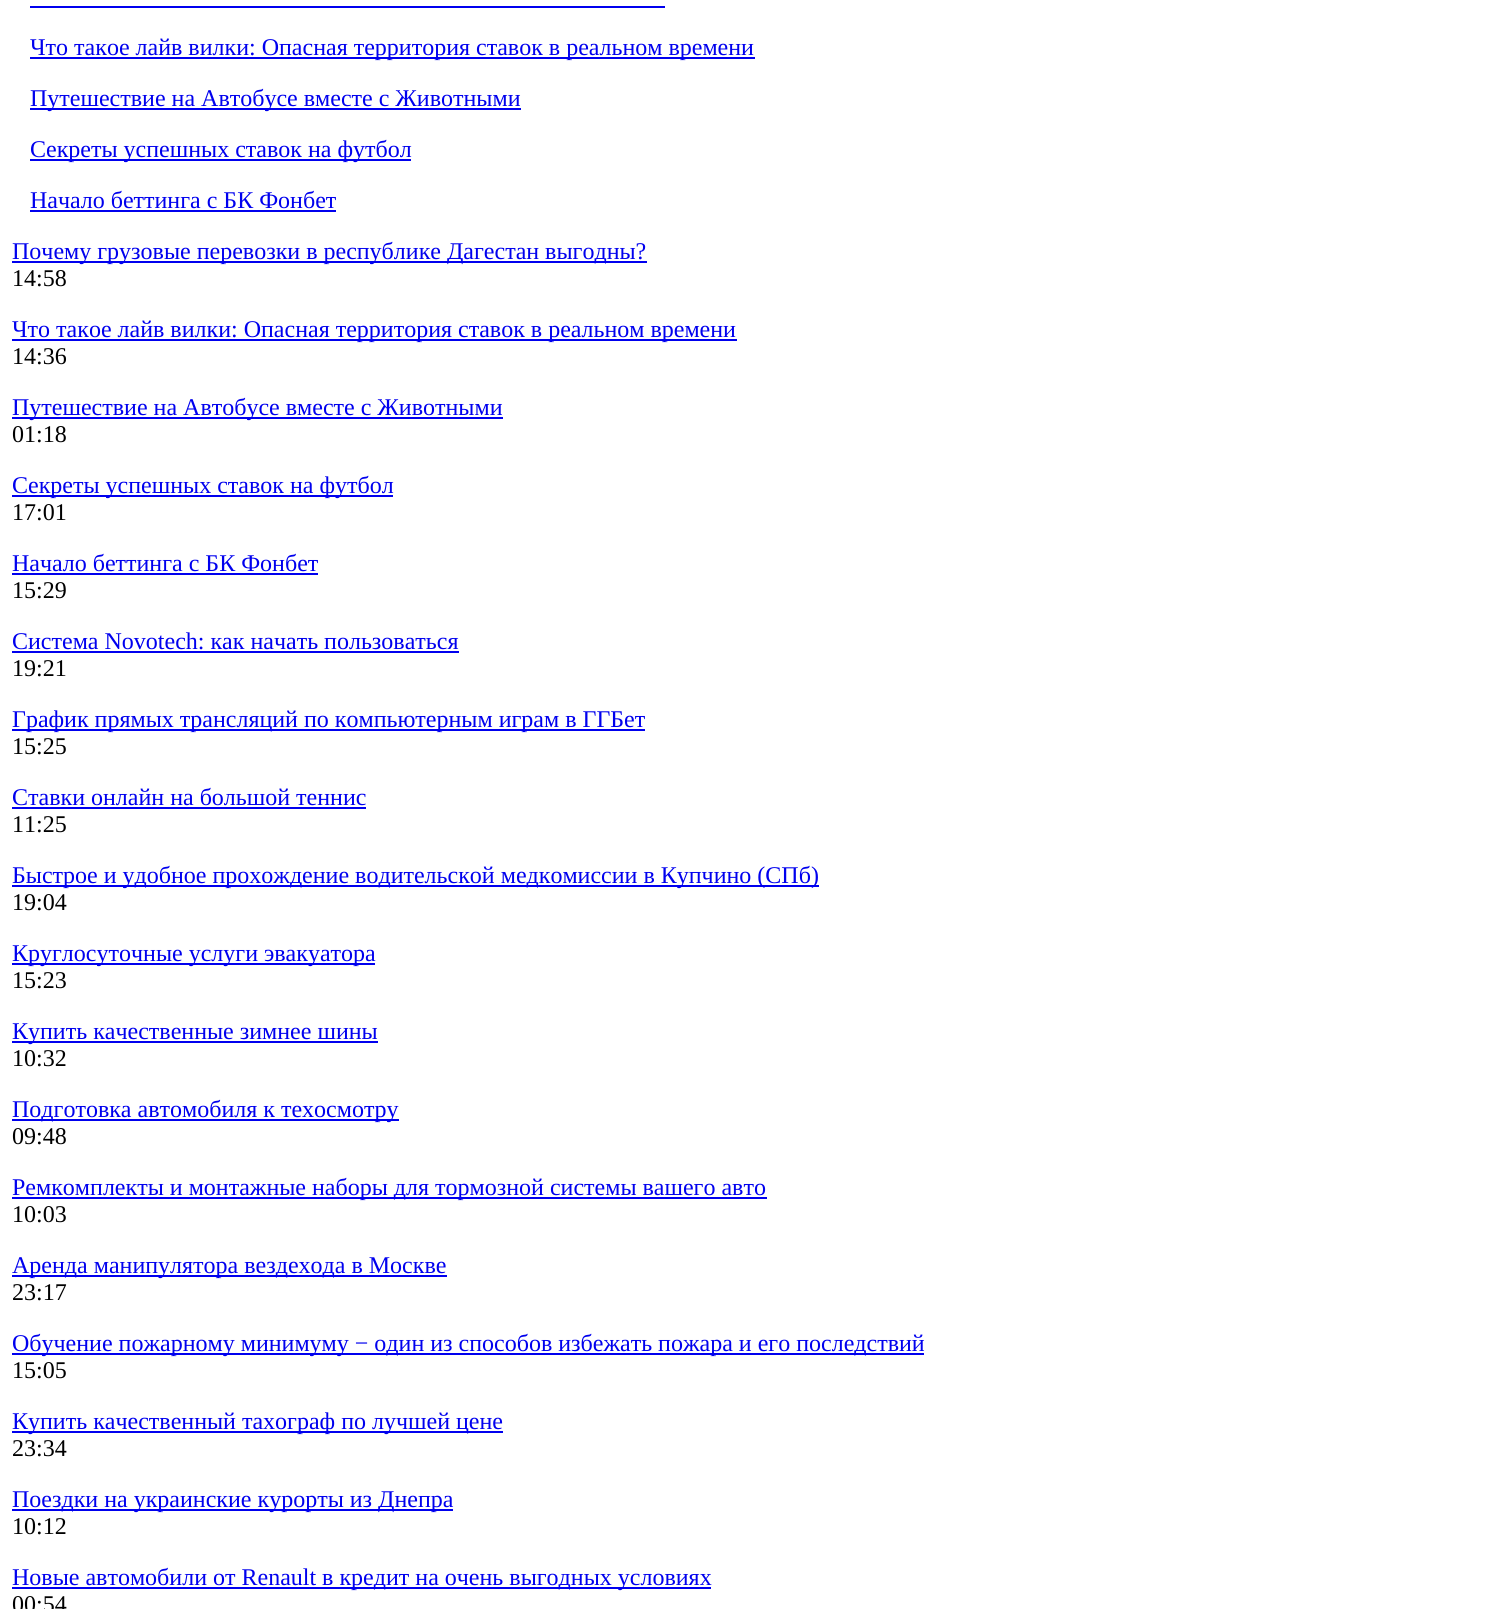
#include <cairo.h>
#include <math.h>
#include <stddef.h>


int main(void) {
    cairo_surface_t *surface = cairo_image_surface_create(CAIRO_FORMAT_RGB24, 1496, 1609);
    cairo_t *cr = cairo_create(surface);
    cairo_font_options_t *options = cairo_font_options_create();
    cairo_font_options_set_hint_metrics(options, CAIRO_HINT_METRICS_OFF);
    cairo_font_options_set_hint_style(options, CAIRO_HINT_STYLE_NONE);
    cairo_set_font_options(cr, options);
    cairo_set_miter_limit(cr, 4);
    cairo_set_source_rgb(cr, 1, 1, 1);
    cairo_paint(cr);
    cairo_set_source_rgb(cr, 0, 0, 0.933);
    cairo_rectangle(cr, 30, 6, 635, 2);
    cairo_fill(cr);
    cairo_rectangle(cr, 30, 57, 725, 2);
    cairo_fill(cr);
    cairo_select_font_face(cr, "Liberation Serif", CAIRO_FONT_SLANT_NORMAL, CAIRO_FONT_WEIGHT_NORMAL);
    cairo_set_font_size(cr, 24);
    cairo_move_to(cr, 30, 55);
    cairo_show_text(cr, "Что такое лайв вилки: Опасная территория ставок в реальном времени");
    cairo_rectangle(cr, 30, 108, 491, 2);
    cairo_fill(cr);
    cairo_move_to(cr, 30, 106);
    cairo_show_text(cr, "Путешествие на Автобусе вместе с Животными");
    cairo_rectangle(cr, 30, 159, 381, 2);
    cairo_fill(cr);
    cairo_move_to(cr, 30, 157);
    cairo_show_text(cr, "Секреты успешных ставок на футбол");
    cairo_move_to(cr, 30, 208);
    cairo_show_text(cr, "Начало беттинга с БК Фонбет");
    cairo_rectangle(cr, 30, 210, 306, 2);
    cairo_fill(cr);
    cairo_rectangle(cr, 12, 261, 635, 2);
    cairo_fill(cr);
    cairo_move_to(cr, 12, 259);
    cairo_show_text(cr, "Почему грузовые перевозки в республике Дагестан выгодны?");
    cairo_set_source_rgb(cr, 0, 0, 0);
    cairo_move_to(cr, 12, 286);
    cairo_show_text(cr, "14:58");
    cairo_set_source_rgb(cr, 0, 0, 0.933);
    cairo_rectangle(cr, 12, 339, 725, 2);
    cairo_fill(cr);
    cairo_move_to(cr, 12, 337);
    cairo_show_text(cr, "Что такое лайв вилки: Опасная территория ставок в реальном времени");
    cairo_set_source_rgb(cr, 0, 0, 0);
    cairo_move_to(cr, 12, 364);
    cairo_show_text(cr, "14:36");
    cairo_set_source_rgb(cr, 0, 0, 0.933);
    cairo_rectangle(cr, 12, 417, 491, 2);
    cairo_fill(cr);
    cairo_move_to(cr, 12, 415);
    cairo_show_text(cr, "Путешествие на Автобусе вместе с Животными");
    cairo_set_source_rgb(cr, 0, 0, 0);
    cairo_move_to(cr, 12, 442);
    cairo_show_text(cr, "01:18");
    cairo_set_source_rgb(cr, 0, 0, 0.933);
    cairo_rectangle(cr, 12, 495, 381, 2);
    cairo_fill(cr);
    cairo_move_to(cr, 12, 493);
    cairo_show_text(cr, "Секреты успешных ставок на футбол");
    cairo_set_source_rgb(cr, 0, 0, 0);
    cairo_move_to(cr, 12, 520);
    cairo_show_text(cr, "17:01");
    cairo_set_source_rgb(cr, 0, 0, 0.933);
    cairo_move_to(cr, 12, 571);
    cairo_show_text(cr, "Начало беттинга с БК Фонбет");
    cairo_rectangle(cr, 12, 573, 306, 2);
    cairo_fill(cr);
    cairo_set_source_rgb(cr, 0, 0, 0);
    cairo_move_to(cr, 12, 598);
    cairo_show_text(cr, "15:29");
    cairo_set_source_rgb(cr, 0, 0, 0.933);
    cairo_move_to(cr, 12, 649);
    cairo_show_text(cr, "Система Novotech: как начать пользоваться");
    cairo_rectangle(cr, 12, 651, 447, 2);
    cairo_fill(cr);
    cairo_set_source_rgb(cr, 0, 0, 0);
    cairo_move_to(cr, 12, 676);
    cairo_show_text(cr, "19:21");
    cairo_set_source_rgb(cr, 0, 0, 0.933);
    cairo_rectangle(cr, 12, 729, 633, 2);
    cairo_fill(cr);
    cairo_move_to(cr, 12, 727);
    cairo_show_text(cr, "График прямых трансляций по компьютерным играм в ГГБет");
    cairo_set_source_rgb(cr, 0, 0, 0);
    cairo_move_to(cr, 12, 754);
    cairo_show_text(cr, "15:25");
    cairo_set_source_rgb(cr, 0, 0, 0.933);
    cairo_move_to(cr, 12, 805);
    cairo_show_text(cr, "Ставки онлайн на большой теннис");
    cairo_rectangle(cr, 12, 807, 354, 2);
    cairo_fill(cr);
    cairo_set_source_rgb(cr, 0, 0, 0);
    cairo_move_to(cr, 12, 832);
    cairo_show_text(cr, "11:25");
    cairo_set_source_rgb(cr, 0, 0, 0.933);
    cairo_rectangle(cr, 12, 885, 807, 2);
    cairo_fill(cr);
    cairo_move_to(cr, 12, 883);
    cairo_show_text(cr, "Быстрое и удобное прохождение водительской медкомиссии в Купчино (СПб)");
    cairo_set_source_rgb(cr, 0, 0, 0);
    cairo_move_to(cr, 12, 910);
    cairo_show_text(cr, "19:04");
    cairo_set_source_rgb(cr, 0, 0, 0.933);
    cairo_rectangle(cr, 12, 963, 363, 2);
    cairo_fill(cr);
    cairo_move_to(cr, 12, 961);
    cairo_show_text(cr, "Круглосуточные услуги эвакуатора");
    cairo_set_source_rgb(cr, 0, 0, 0);
    cairo_move_to(cr, 12, 988);
    cairo_show_text(cr, "15:23");
    cairo_set_source_rgb(cr, 0, 0, 0.933);
    cairo_rectangle(cr, 12, 1041, 366, 2);
    cairo_fill(cr);
    cairo_move_to(cr, 12, 1039);
    cairo_show_text(cr, "Купить качественные зимнее шины");
    cairo_set_source_rgb(cr, 0, 0, 0);
    cairo_move_to(cr, 12, 1066);
    cairo_show_text(cr, "10:32");
    cairo_set_source_rgb(cr, 0, 0, 0.933);
    cairo_rectangle(cr, 12, 1119, 387, 2);
    cairo_fill(cr);
    cairo_move_to(cr, 12, 1117);
    cairo_show_text(cr, "Подготовка автомобиля к техосмотру");
    cairo_set_source_rgb(cr, 0, 0, 0);
    cairo_move_to(cr, 12, 1144);
    cairo_show_text(cr, "09:48");
    cairo_set_source_rgb(cr, 0, 0, 0.933);
    cairo_rectangle(cr, 12, 1197, 755, 2);
    cairo_fill(cr);
    cairo_move_to(cr, 12, 1195);
    cairo_show_text(cr, "Ремкомплекты и монтажные наборы для тормозной системы вашего авто");
    cairo_set_source_rgb(cr, 0, 0, 0);
    cairo_move_to(cr, 12, 1222);
    cairo_show_text(cr, "10:03");
    cairo_set_source_rgb(cr, 0, 0, 0.933);
    cairo_rectangle(cr, 12, 1275, 435, 2);
    cairo_fill(cr);
    cairo_move_to(cr, 12, 1273);
    cairo_show_text(cr, "Аренда манипулятора вездехода в Москве");
    cairo_set_source_rgb(cr, 0, 0, 0);
    cairo_move_to(cr, 12, 1300);
    cairo_show_text(cr, "23:17");
    cairo_set_source_rgb(cr, 0, 0, 0.933);
    cairo_rectangle(cr, 12, 1353, 912, 2);
    cairo_fill(cr);
    cairo_move_to(cr, 12, 1351);
    cairo_show_text(cr, "Обучение пожарному минимуму − один из способов избежать пожара и его последствий");
    cairo_set_source_rgb(cr, 0, 0, 0);
    cairo_move_to(cr, 12, 1378);
    cairo_show_text(cr, "15:05");
    cairo_set_source_rgb(cr, 0, 0, 0.933);
    cairo_rectangle(cr, 12, 1431, 491, 2);
    cairo_fill(cr);
    cairo_move_to(cr, 12, 1429);
    cairo_show_text(cr, "Купить качественный тахограф по лучшей цене");
    cairo_set_source_rgb(cr, 0, 0, 0);
    cairo_move_to(cr, 12, 1456);
    cairo_show_text(cr, "23:34");
    cairo_set_source_rgb(cr, 0, 0, 0.933);
    cairo_rectangle(cr, 12, 1509, 441, 2);
    cairo_fill(cr);
    cairo_move_to(cr, 12, 1507);
    cairo_show_text(cr, "Поездки на украинские курорты из Днепра");
    cairo_set_source_rgb(cr, 0, 0, 0);
    cairo_move_to(cr, 12, 1534);
    cairo_show_text(cr, "10:12");
    cairo_set_source_rgb(cr, 0, 0, 0.933);
    cairo_rectangle(cr, 12, 1587, 699, 2);
    cairo_fill(cr);
    cairo_move_to(cr, 12, 1585);
    cairo_show_text(cr, "Новые автомобили от Renault в кредит на очень выгодных условиях");
    cairo_set_source_rgb(cr, 0, 0, 0);
    cairo_move_to(cr, 12, 1612);
    cairo_show_text(cr, "00:54");
    cairo_surface_write_to_png(surface, "page.png");
    cairo_font_options_destroy(options);
    cairo_destroy(cr);
    cairo_surface_destroy(surface);
    return 0;
}
